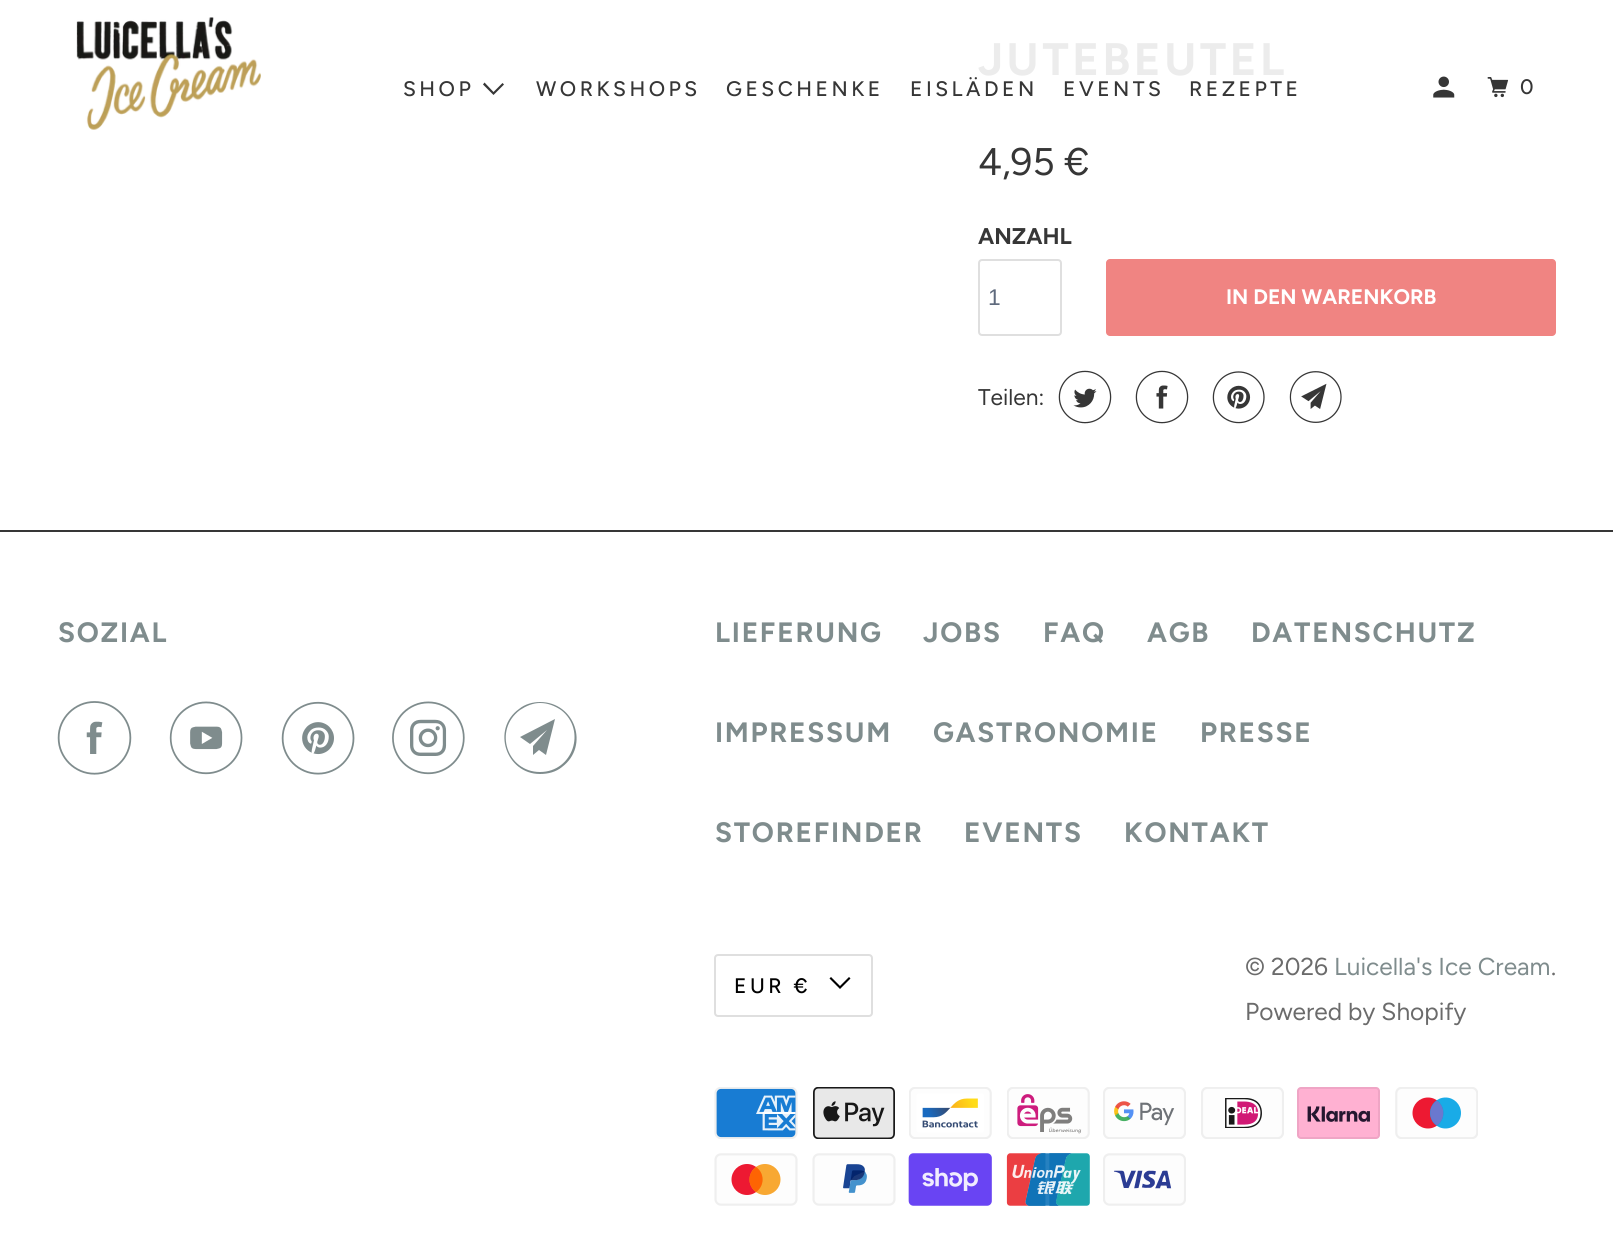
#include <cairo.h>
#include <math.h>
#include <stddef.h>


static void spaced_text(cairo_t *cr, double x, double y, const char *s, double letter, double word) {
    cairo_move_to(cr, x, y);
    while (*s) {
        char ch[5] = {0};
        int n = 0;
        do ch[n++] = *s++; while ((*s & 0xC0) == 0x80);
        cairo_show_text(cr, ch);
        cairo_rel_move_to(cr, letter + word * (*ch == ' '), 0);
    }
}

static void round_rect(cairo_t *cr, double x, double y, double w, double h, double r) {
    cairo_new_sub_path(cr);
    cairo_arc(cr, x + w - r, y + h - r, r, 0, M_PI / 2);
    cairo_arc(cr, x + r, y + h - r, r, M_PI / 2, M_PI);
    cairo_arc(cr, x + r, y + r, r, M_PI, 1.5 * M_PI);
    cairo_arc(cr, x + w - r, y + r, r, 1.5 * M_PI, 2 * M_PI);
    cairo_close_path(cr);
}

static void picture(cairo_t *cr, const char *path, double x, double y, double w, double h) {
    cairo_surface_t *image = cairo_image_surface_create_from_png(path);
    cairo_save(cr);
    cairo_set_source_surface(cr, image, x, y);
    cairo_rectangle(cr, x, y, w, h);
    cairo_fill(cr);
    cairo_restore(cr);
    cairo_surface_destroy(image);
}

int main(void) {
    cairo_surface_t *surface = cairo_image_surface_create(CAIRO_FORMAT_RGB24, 1613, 1258);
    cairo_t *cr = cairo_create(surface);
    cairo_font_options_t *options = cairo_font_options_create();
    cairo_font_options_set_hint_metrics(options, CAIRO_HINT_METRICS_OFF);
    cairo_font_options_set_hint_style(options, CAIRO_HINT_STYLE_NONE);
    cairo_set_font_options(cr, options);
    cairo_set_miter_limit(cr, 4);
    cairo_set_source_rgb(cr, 1, 1, 1);
    cairo_paint(cr);
    cairo_select_font_face(cr, "Figtree", CAIRO_FONT_SLANT_NORMAL, CAIRO_FONT_WEIGHT_BOLD);
    cairo_set_font_size(cr, 45.5);
    cairo_set_source_rgb(cr, 0.922, 0.922, 0.922);
    spaced_text(cr, 978, 75, "JUTEBEUTEL", 3.5, 0);
    cairo_select_font_face(cr, "Figtree", CAIRO_FONT_SLANT_NORMAL, CAIRO_FONT_WEIGHT_NORMAL);
    cairo_set_font_size(cr, 38.5);
    cairo_set_source_rgb(cr, 0.212, 0.212, 0.212);
    cairo_move_to(cr, 978, 175);
    cairo_show_text(cr, "4,95 €");
    cairo_select_font_face(cr, "Figtree", CAIRO_FONT_SLANT_NORMAL, CAIRO_FONT_WEIGHT_BOLD);
    cairo_set_font_size(cr, 22.75);
    cairo_move_to(cr, 978, 244);
    cairo_show_text(cr, "ANZAHL");
    round_rect(cr, 979, 260, 82, 75, 3);
    cairo_set_source_rgb(cr, 0.875, 0.875, 0.875);
    cairo_stroke(cr);
    cairo_select_font_face(cr, "Liberation Sans", CAIRO_FONT_SLANT_NORMAL, CAIRO_FONT_WEIGHT_NORMAL);
    cairo_set_source_rgb(cr, 0.373, 0.416, 0.49);
    cairo_move_to(cr, 988, 305);
    cairo_show_text(cr, "1");
    cairo_set_source_rgb(cr, 0.941, 0.518, 0.51);
    round_rect(cr, 1106, 259, 450, 77, 4);
    cairo_fill(cr);
    cairo_select_font_face(cr, "Figtree", CAIRO_FONT_SLANT_NORMAL, CAIRO_FONT_WEIGHT_BOLD);
    cairo_set_font_size(cr, 21);
    cairo_set_source_rgb(cr, 1, 1, 1);
    cairo_move_to(cr, 1226, 304);
    cairo_show_text(cr, "IN DEN WARENKORB");
    cairo_select_font_face(cr, "Figtree", CAIRO_FONT_SLANT_NORMAL, CAIRO_FONT_WEIGHT_NORMAL);
    cairo_set_font_size(cr, 22.75);
    cairo_set_source_rgb(cr, 0.212, 0.212, 0.212);
    cairo_move_to(cr, 978, 405);
    cairo_show_text(cr, "Teilen:");
    picture(cr, "img1.png", 1058, 370, 54, 54);
    picture(cr, "img2.png", 1135, 370, 54, 54);
    picture(cr, "img3.png", 1212, 371, 53, 53);
    picture(cr, "img4.png", 1289, 371, 53, 52);
    picture(cr, "img5.png", 76, 17, 185, 113);
    cairo_select_font_face(cr, "Figtree Medium", CAIRO_FONT_SLANT_NORMAL, CAIRO_FONT_WEIGHT_NORMAL);
    cairo_set_font_size(cr, 21);
    spaced_text(cr, 403, 96, "SHOP", 3.5, 0);
    cairo_new_path(cr);
    cairo_move_to(cr, 488, 89.5);
    cairo_line_to(cr, 483, 84.5);
    cairo_line_to(cr, 484.5, 82.5);
    cairo_line_to(cr, 493.5, 92);
    cairo_line_to(cr, 502.5, 83);
    cairo_line_to(cr, 504, 84.5);
    cairo_line_to(cr, 493.5, 95);
    cairo_close_path(cr);
    cairo_fill(cr);
    spaced_text(cr, 536, 96, "WORKSHOPS", 3.5, 0);
    spaced_text(cr, 726, 96, "GESCHENKE", 3.5, 0);
    spaced_text(cr, 910, 96, "EISLÄDEN", 3.5, 0);
    spaced_text(cr, 1063, 96, "EVENTS", 3.5, 0);
    spaced_text(cr, 1189, 96, "REZEPTE", 3.5, 0);
    picture(cr, "img6.png", 1433, 76, 22, 22);
    picture(cr, "img7.png", 1487, 77, 22, 21);
    spaced_text(cr, 1520, 94, "0", 3.5, 0);
    cairo_rectangle(cr, 0, 530, 1613, 2);
    cairo_fill(cr);
    cairo_select_font_face(cr, "Figtree", CAIRO_FONT_SLANT_NORMAL, CAIRO_FONT_WEIGHT_BOLD);
    cairo_set_font_size(cr, 28);
    cairo_set_source_rgb(cr, 0.498, 0.549, 0.553);
    spaced_text(cr, 58, 642, "SOZIAL", 1.75, 0);
    picture(cr, "img8.png", 57, 701, 75, 74);
    picture(cr, "img9.png", 169, 701, 74, 74);
    picture(cr, "img10.png", 281, 701, 74, 74);
    picture(cr, "img11.png", 392, 701, 73, 74);
    cairo_new_path(cr);
    cairo_move_to(cr, 546, 755);
    cairo_line_to(cr, 539, 750);
    cairo_line_to(cr, 533, 755);
    cairo_line_to(cr, 533, 746);
    cairo_line_to(cr, 547, 730);
    cairo_line_to(cr, 530, 744);
    cairo_line_to(cr, 520, 737);
    cairo_line_to(cr, 555, 719);
    cairo_close_path(cr);
    cairo_move_to(cr, 540, 703);
    cairo_curve_to(cr, 533, 703, 526, 706, 520, 710);
    cairo_curve_to(cr, 493, 730, 507, 772, 540, 772);
    cairo_curve_to(cr, 573, 772, 587, 730, 561, 710);
    cairo_curve_to(cr, 555, 706, 548, 703, 540, 703);
    cairo_close_path(cr);
    cairo_move_to(cr, 540, 774);
    cairo_curve_to(cr, 506, 774, 491, 729, 519, 709);
    cairo_curve_to(cr, 525, 704, 533, 702, 540, 702);
    cairo_curve_to(cr, 575, 702, 590, 746, 562, 767);
    cairo_curve_to(cr, 556, 772, 548, 774, 540, 774);
    cairo_close_path(cr);
    cairo_fill(cr);
    spaced_text(cr, 715, 642, "LIEFERUNG", 1.75, 0);
    spaced_text(cr, 923, 642, "JOBS", 1.75, 0);
    spaced_text(cr, 1043, 642, "FAQ", 1.75, 0);
    spaced_text(cr, 1147, 642, "AGB", 1.75, 0);
    spaced_text(cr, 1251, 642, "DATENSCHUTZ", 1.75, 0);
    spaced_text(cr, 715, 742, "IMPRESSUM", 1.75, 0);
    spaced_text(cr, 933, 742, "GASTRONOMIE", 1.75, 0);
    spaced_text(cr, 1200, 742, "PRESSE", 1.75, 0);
    spaced_text(cr, 715, 842, "STOREFINDER", 1.75, 0);
    spaced_text(cr, 964, 842, "EVENTS", 1.75, 0);
    spaced_text(cr, 1124, 842, "KONTAKT", 1.75, 0);
    round_rect(cr, 715, 955, 157, 61, 3);
    cairo_set_source_rgb(cr, 0.875, 0.875, 0.875);
    cairo_stroke(cr);
    cairo_select_font_face(cr, "Figtree Medium", CAIRO_FONT_SLANT_NORMAL, CAIRO_FONT_WEIGHT_NORMAL);
    cairo_set_font_size(cr, 21);
    cairo_set_source_rgb(cr, 0, 0, 0);
    spaced_text(cr, 734, 993, "EUR €", 3.5, 0);
    cairo_new_path(cr);
    cairo_move_to(cr, 835, 984);
    cairo_line_to(cr, 829.5, 978.5);
    cairo_line_to(cr, 831, 977);
    cairo_line_to(cr, 840, 986);
    cairo_line_to(cr, 849, 977);
    cairo_line_to(cr, 850.5, 978.5);
    cairo_line_to(cr, 840, 989);
    cairo_close_path(cr);
    cairo_fill(cr);
    cairo_select_font_face(cr, "Figtree", CAIRO_FONT_SLANT_NORMAL, CAIRO_FONT_WEIGHT_NORMAL);
    cairo_set_font_size(cr, 24.5);
    cairo_set_source_rgb(cr, 0.42, 0.42, 0.42);
    cairo_move_to(cr, 1245, 975);
    cairo_show_text(cr, "© 2026");
    cairo_set_source_rgb(cr, 0.498, 0.549, 0.553);
    cairo_move_to(cr, 1334, 975);
    cairo_show_text(cr, "Luicella's Ice Cream");
    cairo_set_source_rgb(cr, 0.42, 0.42, 0.42);
    cairo_move_to(cr, 1551, 975);
    cairo_show_text(cr, ".");
    cairo_move_to(cr, 1245, 1020);
    cairo_show_text(cr, "Powered by Shopify");
    picture(cr, "img12.png", 714, 1087, 84, 52);
    picture(cr, "img13.png", 813, 1087, 82, 52);
    picture(cr, "img14.png", 909, 1087, 83, 52);
    picture(cr, "img15.png", 1007, 1087, 83, 52);
    picture(cr, "img16.png", 1103, 1087, 83, 52);
    picture(cr, "img17.png", 1201, 1087, 83, 52);
    picture(cr, "img18.png", 1297, 1087, 83, 52);
    picture(cr, "img19.png", 1395, 1087, 83, 52);
    picture(cr, "img20.png", 714, 1153, 84, 53);
    picture(cr, "img21.png", 812, 1153, 84, 53);
    picture(cr, "img22.png", 908, 1153, 84, 53);
    picture(cr, "img23.png", 1006, 1153, 84, 53);
    picture(cr, "img24.png", 1103, 1153, 83, 53);
    cairo_surface_write_to_png(surface, "page.png");
    cairo_font_options_destroy(options);
    cairo_destroy(cr);
    cairo_surface_destroy(surface);
    return 0;
}
